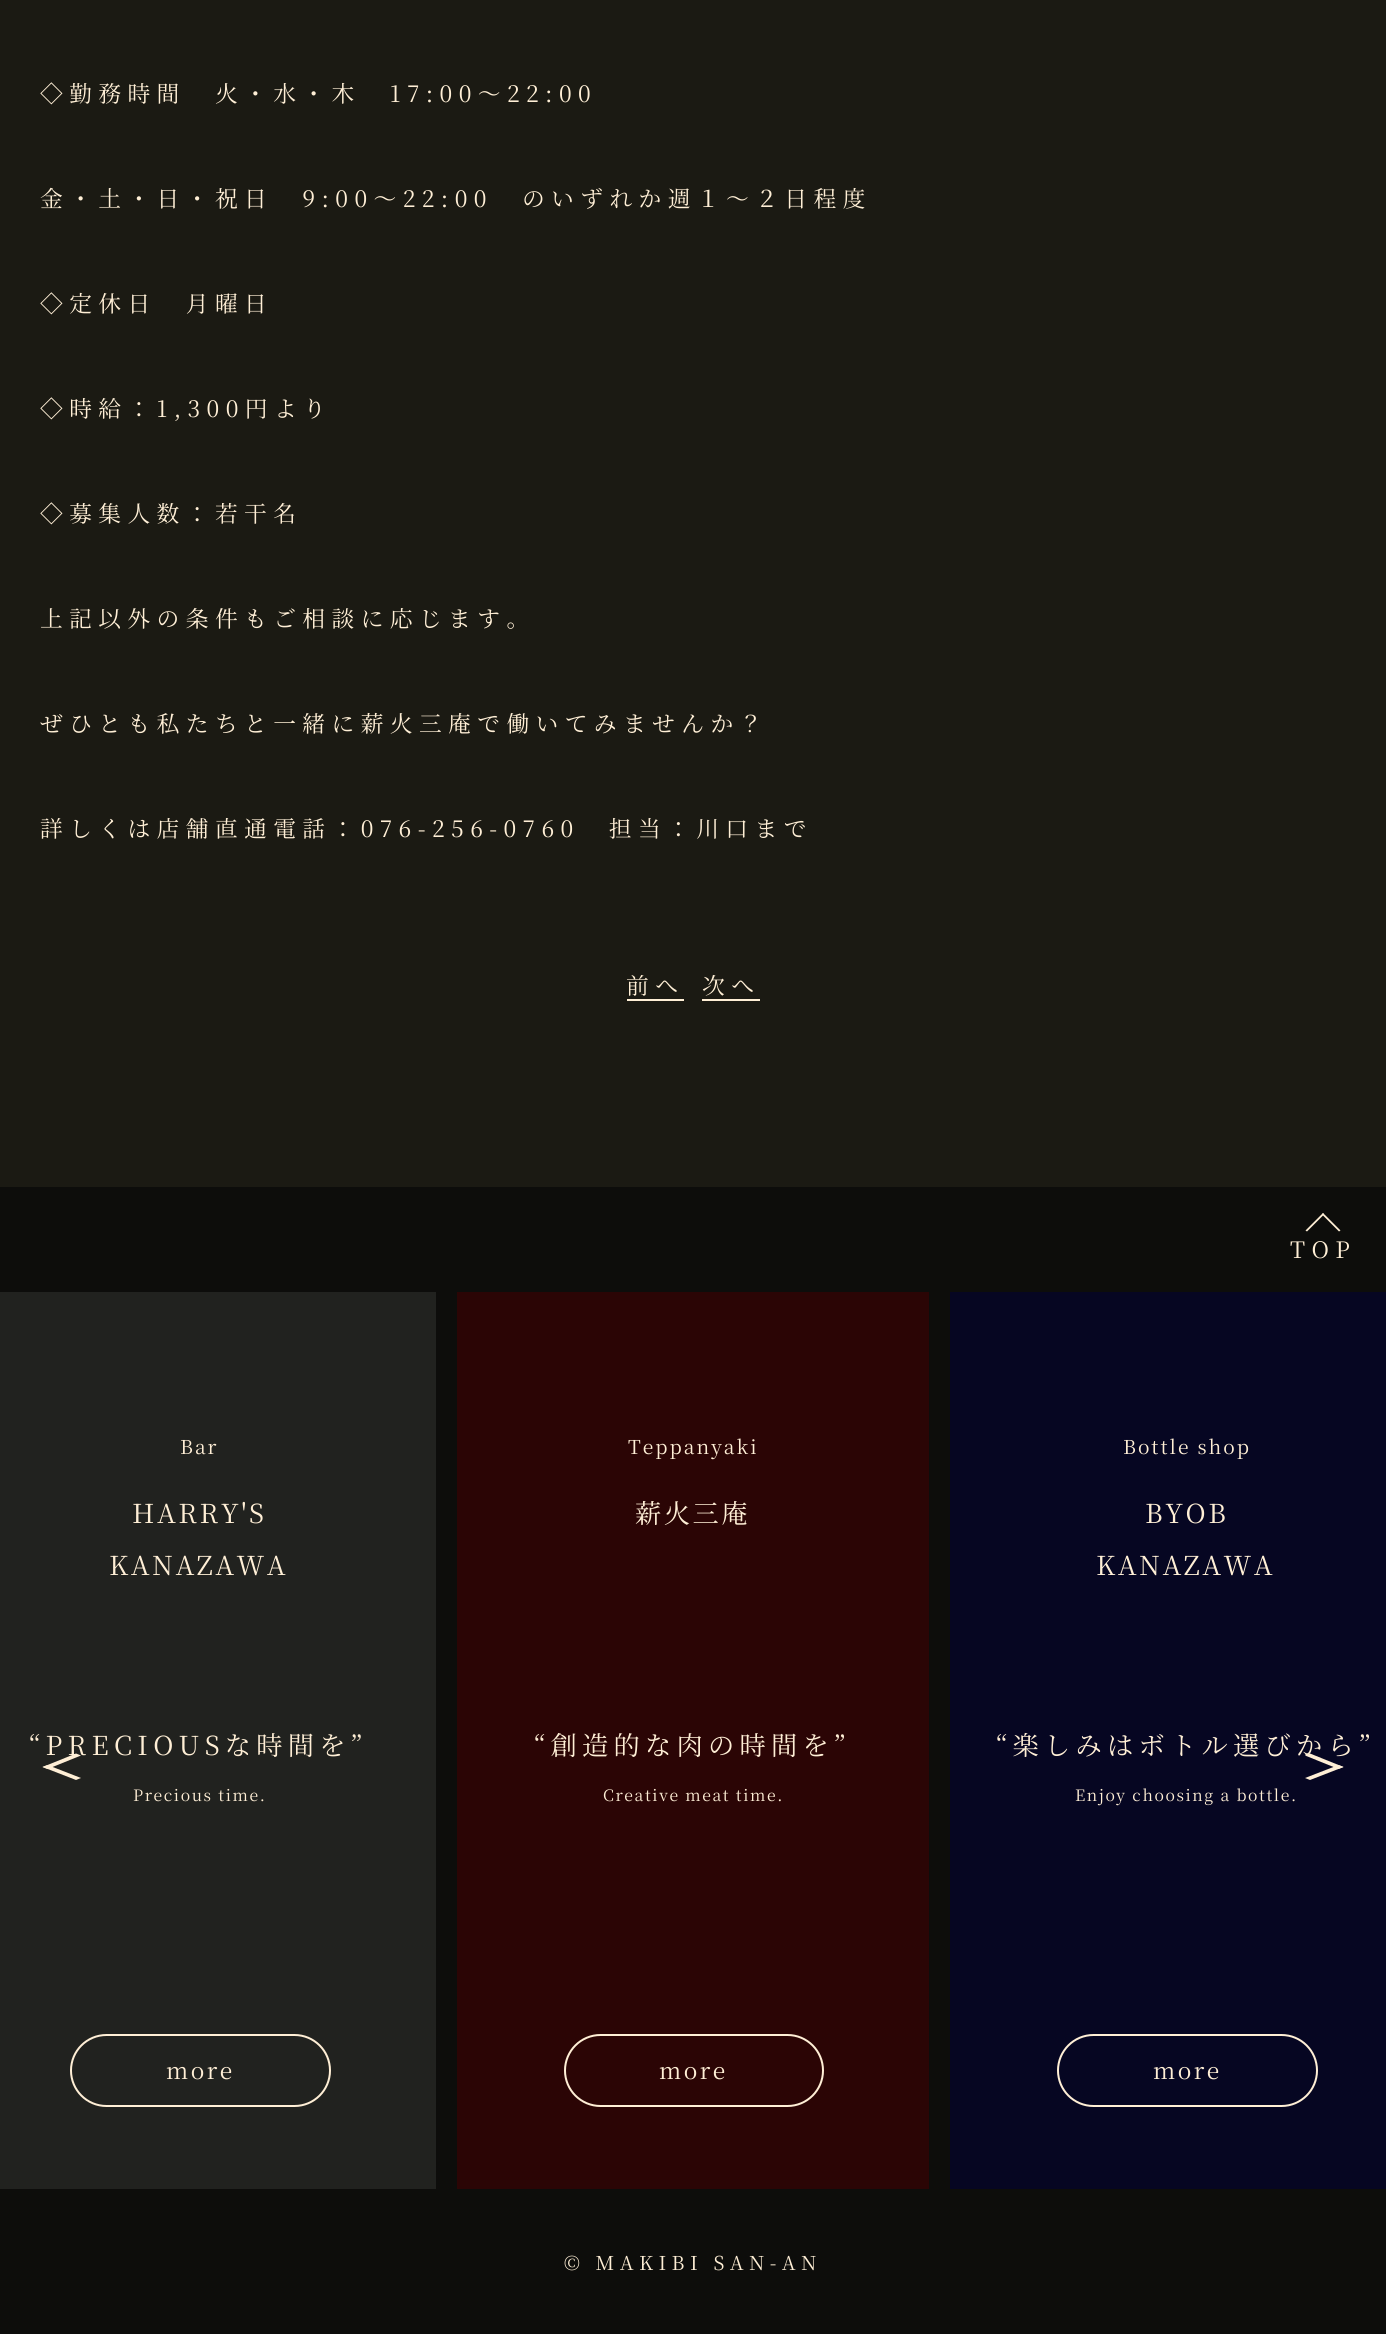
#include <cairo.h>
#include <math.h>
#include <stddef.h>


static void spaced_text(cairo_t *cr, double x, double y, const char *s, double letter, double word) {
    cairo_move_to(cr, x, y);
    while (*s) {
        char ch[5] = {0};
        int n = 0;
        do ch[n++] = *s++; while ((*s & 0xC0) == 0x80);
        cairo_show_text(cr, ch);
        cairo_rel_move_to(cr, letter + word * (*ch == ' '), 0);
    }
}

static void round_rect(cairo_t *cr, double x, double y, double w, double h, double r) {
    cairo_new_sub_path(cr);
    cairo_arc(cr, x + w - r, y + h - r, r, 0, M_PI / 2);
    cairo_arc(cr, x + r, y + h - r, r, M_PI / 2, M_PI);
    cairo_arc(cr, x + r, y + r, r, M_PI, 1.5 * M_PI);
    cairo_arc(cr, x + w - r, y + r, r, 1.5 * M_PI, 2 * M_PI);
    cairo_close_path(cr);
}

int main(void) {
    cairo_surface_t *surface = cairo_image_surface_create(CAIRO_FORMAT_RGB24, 1386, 2334);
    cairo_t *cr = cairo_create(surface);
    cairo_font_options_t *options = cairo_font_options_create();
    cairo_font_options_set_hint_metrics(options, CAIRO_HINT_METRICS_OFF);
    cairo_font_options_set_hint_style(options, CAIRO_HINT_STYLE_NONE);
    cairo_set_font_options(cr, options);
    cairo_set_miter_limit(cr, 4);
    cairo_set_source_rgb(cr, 0.106, 0.102, 0.078);
    cairo_paint(cr);
    cairo_select_font_face(cr, "Noto Serif JP ExtraLight", CAIRO_FONT_SLANT_NORMAL, CAIRO_FONT_WEIGHT_NORMAL);
    cairo_set_font_size(cr, 22.75);
    cairo_set_source_rgb(cr, 1, 0.937, 0.839);
    spaced_text(cr, 40, 102, "◇勤務時間　火・水・木　17:00～22:00", 6.4, 0);
    spaced_text(cr, 40, 207, "金・土・日・祝日　9:00～22:00　のいずれか週１～２日程度", 6.4, 0);
    spaced_text(cr, 40, 312, "◇定休日　月曜日", 6.4, 0);
    spaced_text(cr, 40, 417, "◇時給：1,300円より", 6.4, 0);
    spaced_text(cr, 40, 522, "◇募集人数：若干名", 6.4, 0);
    spaced_text(cr, 40, 627, "上記以外の条件もご相談に応じます。", 6.4, 0);
    spaced_text(cr, 40, 732, "ぜひとも私たちと一緒に薪火三庵で働いてみませんか？", 6.4, 0);
    spaced_text(cr, 40, 837, "詳しくは店舗直通電話：076-256-0760　担当：川口まで", 6.4, 0);
    spaced_text(cr, 626, 994, "前へ", 6.4, 0);
    cairo_rectangle(cr, 627, 999, 57, 2);
    cairo_fill(cr);
    spaced_text(cr, 702, 994, "次へ", 6.4, 0);
    cairo_rectangle(cr, 702, 999, 58, 2);
    cairo_fill(cr);
    cairo_set_source_rgb(cr, 0.051, 0.051, 0.043);
    cairo_rectangle(cr, 0, 1187, 1386, 1147);
    cairo_fill(cr);
    cairo_set_source_rgb(cr, 1, 0.937, 0.839);
    cairo_new_path(cr);
    cairo_move_to(cr, 1323, 1213);
    cairo_line_to(cr, 1340.5, 1230.5);
    cairo_line_to(cr, 1339, 1231.5);
    cairo_line_to(cr, 1322, 1214.5);
    cairo_close_path(cr);
    cairo_fill(cr);
    cairo_new_path(cr);
    cairo_move_to(cr, 1323, 1213);
    cairo_line_to(cr, 1324, 1214.5);
    cairo_line_to(cr, 1307, 1231.5);
    cairo_line_to(cr, 1305.5, 1230.5);
    cairo_close_path(cr);
    cairo_fill(cr);
    spaced_text(cr, 1290, 1258, "TOP", 6.4, 0);
    cairo_set_source_rgb(cr, 0.129, 0.133, 0.122);
    cairo_rectangle(cr, 0, 1292, 436, 897);
    cairo_fill(cr);
    cairo_set_font_size(cr, 19.25);
    cairo_set_source_rgb(cr, 1, 0.937, 0.839);
    spaced_text(cr, 180, 1454, "Bar", 2, 0);
    cairo_set_font_size(cr, 26.25);
    spaced_text(cr, 132, 1523, "HARRY'S", 2.5, 0);
    spaced_text(cr, 109, 1575, "KANAZAWA", 2.5, 0);
    spaced_text(cr, 29, 1755, "“PRECIOUSな時間を”", 5.25, 0);
    cairo_set_font_size(cr, 15.75);
    spaced_text(cr, 133, 1801, "Precious time.", 1.6, 0);
    round_rect(cr, 71, 2035, 259, 71, 35.5);
    cairo_stroke(cr);
    cairo_set_font_size(cr, 22.75);
    spaced_text(cr, 166, 2079, "more", 2.5, 0);
    cairo_set_source_rgb(cr, 0.169, 0.02, 0.02);
    cairo_rectangle(cr, 457, 1292, 472, 897);
    cairo_fill(cr);
    cairo_set_font_size(cr, 19.25);
    cairo_set_source_rgb(cr, 1, 0.937, 0.839);
    spaced_text(cr, 628, 1454, "Teppanyaki", 2, 0);
    cairo_set_font_size(cr, 26.25);
    spaced_text(cr, 635, 1523, "薪火三庵", 2.5, 0);
    spaced_text(cr, 534, 1755, "“創造的な肉の時間を”", 5.25, 0);
    cairo_set_font_size(cr, 15.75);
    spaced_text(cr, 603, 1801, "Creative meat time.", 1.6, 0);
    round_rect(cr, 565, 2035, 258, 71, 35.5);
    cairo_stroke(cr);
    cairo_set_font_size(cr, 22.75);
    spaced_text(cr, 659, 2079, "more", 2.5, 0);
    cairo_set_source_rgb(cr, 0.024, 0.024, 0.133);
    cairo_rectangle(cr, 950, 1292, 436, 897);
    cairo_fill(cr);
    cairo_set_font_size(cr, 19.25);
    cairo_set_source_rgb(cr, 1, 0.937, 0.839);
    spaced_text(cr, 1123, 1454, "Bottle shop", 2, 0);
    cairo_set_font_size(cr, 26.25);
    spaced_text(cr, 1145, 1523, "BYOB", 2.5, 0);
    spaced_text(cr, 1096, 1575, "KANAZAWA", 2.5, 0);
    spaced_text(cr, 996, 1755, "“楽しみはボトル選びから”", 5.25, 0);
    cairo_set_font_size(cr, 15.75);
    spaced_text(cr, 1075, 1801, "Enjoy choosing a bottle.", 1.6, 0);
    round_rect(cr, 1058, 2035, 259, 71, 35.5);
    cairo_stroke(cr);
    cairo_set_font_size(cr, 22.75);
    spaced_text(cr, 1153, 2079, "more", 2.5, 0);
    cairo_new_path(cr);
    cairo_move_to(cr, 42.5, 1767);
    cairo_line_to(cr, 76, 1753.5);
    cairo_line_to(cr, 81, 1755.5);
    cairo_line_to(cr, 47.5, 1769);
    cairo_close_path(cr);
    cairo_fill(cr);
    cairo_new_path(cr);
    cairo_move_to(cr, 42.5, 1767);
    cairo_line_to(cr, 47.5, 1765);
    cairo_line_to(cr, 81, 1778);
    cairo_line_to(cr, 76, 1780);
    cairo_close_path(cr);
    cairo_fill(cr);
    cairo_new_path(cr);
    cairo_move_to(cr, 1343.5, 1767);
    cairo_line_to(cr, 1310, 1780);
    cairo_line_to(cr, 1305, 1778);
    cairo_line_to(cr, 1338.5, 1765);
    cairo_close_path(cr);
    cairo_fill(cr);
    cairo_new_path(cr);
    cairo_move_to(cr, 1343.5, 1767);
    cairo_line_to(cr, 1338.5, 1769);
    cairo_line_to(cr, 1305, 1755.5);
    cairo_line_to(cr, 1310, 1753.5);
    cairo_close_path(cr);
    cairo_fill(cr);
    cairo_set_font_size(cr, 19.25);
    spaced_text(cr, 564, 2270, "© MAKIBI SAN-AN", 5.4, 0);
    cairo_surface_write_to_png(surface, "page.png");
    cairo_font_options_destroy(options);
    cairo_destroy(cr);
    cairo_surface_destroy(surface);
    return 0;
}
